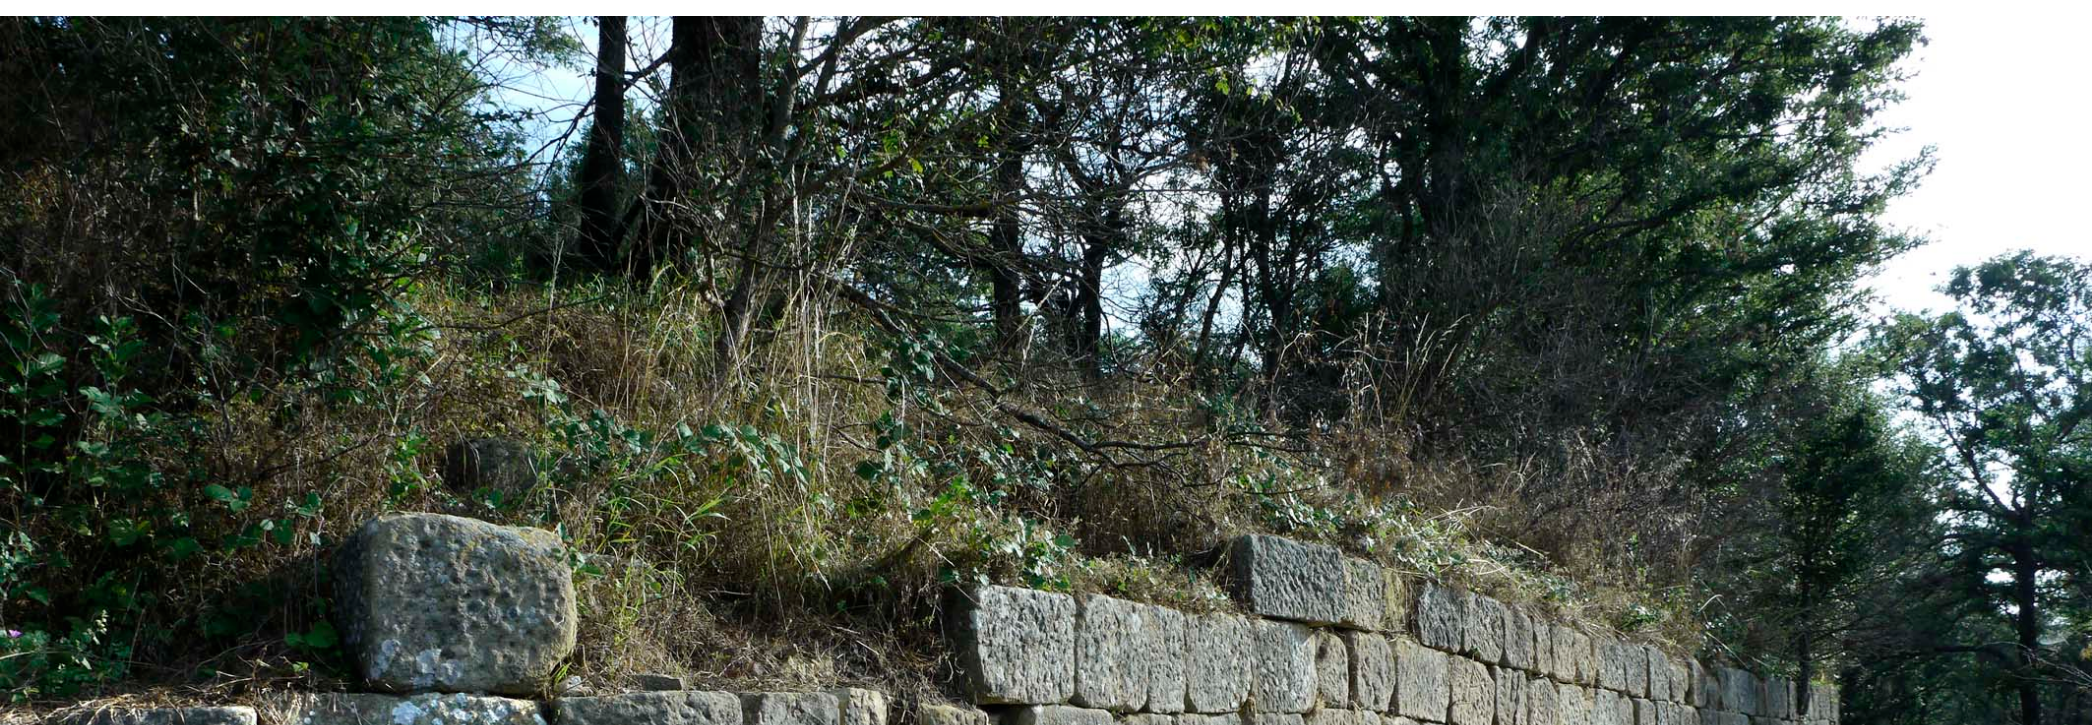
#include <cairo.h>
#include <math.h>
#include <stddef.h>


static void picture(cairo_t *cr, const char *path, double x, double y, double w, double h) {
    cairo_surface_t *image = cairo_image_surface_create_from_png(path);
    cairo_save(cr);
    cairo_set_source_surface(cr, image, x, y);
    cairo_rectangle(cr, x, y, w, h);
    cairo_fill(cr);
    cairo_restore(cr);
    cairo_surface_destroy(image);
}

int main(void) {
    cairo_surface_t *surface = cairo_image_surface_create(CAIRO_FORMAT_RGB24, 2092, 725);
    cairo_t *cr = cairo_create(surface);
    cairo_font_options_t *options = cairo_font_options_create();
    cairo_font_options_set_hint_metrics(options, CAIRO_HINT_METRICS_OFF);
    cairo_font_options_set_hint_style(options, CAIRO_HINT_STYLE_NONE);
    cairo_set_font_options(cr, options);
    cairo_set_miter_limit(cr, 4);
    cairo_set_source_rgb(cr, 1, 1, 1);
    cairo_paint(cr);
    picture(cr, "img1.png", 0, 16, 2092, 709);
    cairo_surface_write_to_png(surface, "page.png");
    cairo_font_options_destroy(options);
    cairo_destroy(cr);
    cairo_surface_destroy(surface);
    return 0;
}
